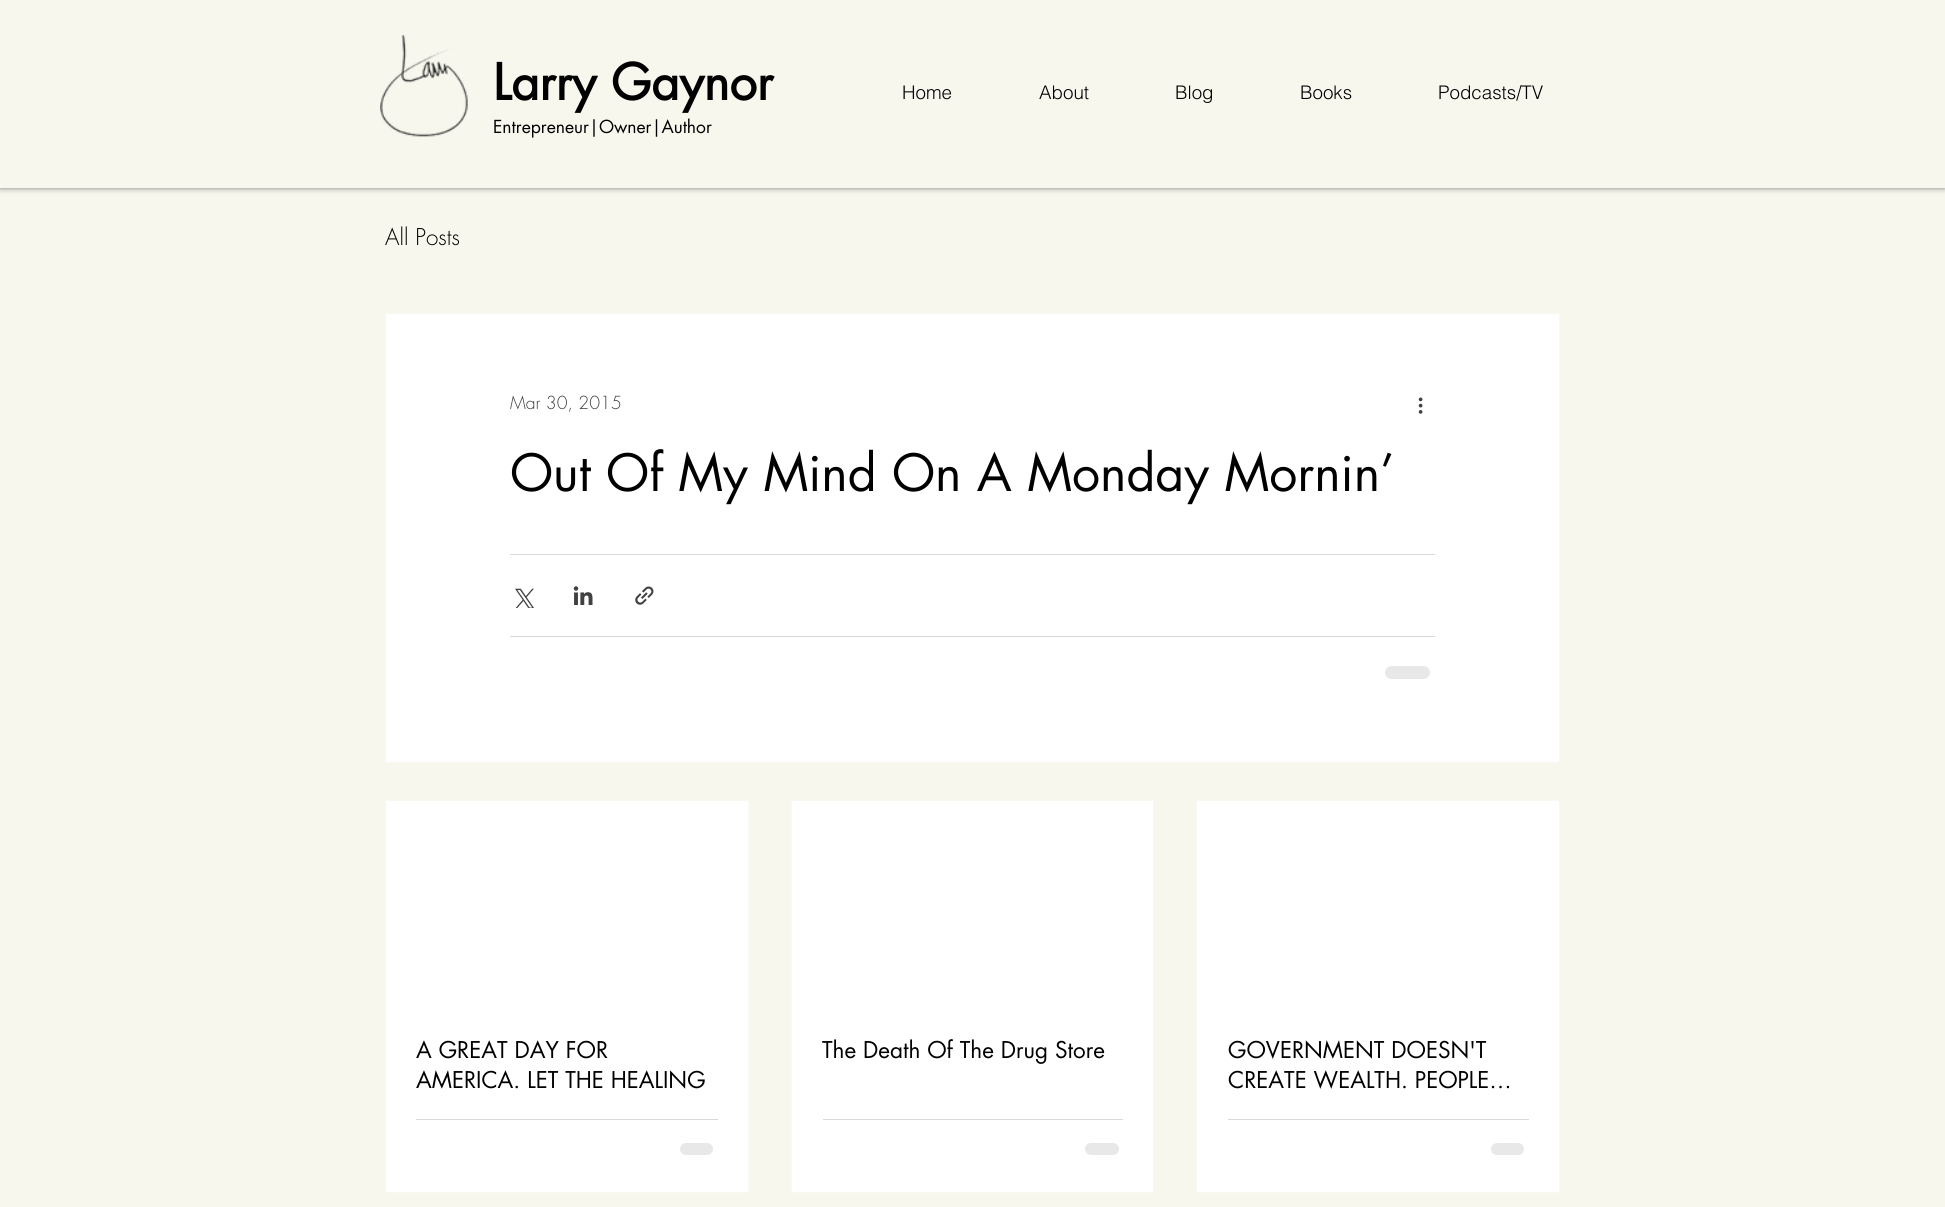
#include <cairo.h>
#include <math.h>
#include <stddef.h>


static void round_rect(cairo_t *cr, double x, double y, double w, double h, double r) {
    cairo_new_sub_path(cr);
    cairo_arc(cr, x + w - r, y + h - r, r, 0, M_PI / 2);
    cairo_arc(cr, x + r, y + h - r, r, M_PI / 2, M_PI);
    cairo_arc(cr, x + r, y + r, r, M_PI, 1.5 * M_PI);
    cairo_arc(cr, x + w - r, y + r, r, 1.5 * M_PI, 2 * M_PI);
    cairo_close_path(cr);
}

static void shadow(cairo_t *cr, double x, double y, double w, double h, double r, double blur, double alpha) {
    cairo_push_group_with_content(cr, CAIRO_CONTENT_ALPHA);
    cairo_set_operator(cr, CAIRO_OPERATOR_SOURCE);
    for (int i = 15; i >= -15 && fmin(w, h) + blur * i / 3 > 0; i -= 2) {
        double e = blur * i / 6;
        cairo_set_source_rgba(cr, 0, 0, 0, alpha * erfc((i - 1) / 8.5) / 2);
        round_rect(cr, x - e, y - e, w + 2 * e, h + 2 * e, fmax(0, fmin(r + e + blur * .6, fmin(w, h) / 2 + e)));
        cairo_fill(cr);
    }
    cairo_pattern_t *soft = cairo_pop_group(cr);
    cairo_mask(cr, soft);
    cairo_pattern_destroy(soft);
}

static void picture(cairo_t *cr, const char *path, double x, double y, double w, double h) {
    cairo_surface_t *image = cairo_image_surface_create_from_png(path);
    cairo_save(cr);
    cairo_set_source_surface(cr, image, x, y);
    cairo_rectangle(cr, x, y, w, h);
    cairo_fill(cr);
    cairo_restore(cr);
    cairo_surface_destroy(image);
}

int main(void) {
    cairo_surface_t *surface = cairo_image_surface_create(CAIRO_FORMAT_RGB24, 1945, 1207);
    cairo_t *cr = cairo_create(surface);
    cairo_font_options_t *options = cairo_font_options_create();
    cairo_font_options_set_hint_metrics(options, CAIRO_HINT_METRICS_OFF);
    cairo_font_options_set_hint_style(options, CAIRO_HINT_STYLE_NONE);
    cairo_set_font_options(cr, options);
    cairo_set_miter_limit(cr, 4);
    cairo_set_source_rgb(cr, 0.965, 0.965, 0.933);
    cairo_paint(cr);
    cairo_set_source_rgb(cr, 0, 0, 0);
    shadow(cr, 0, 0, 1945, 188, 0, 3, 0.5);
    cairo_set_source_rgb(cr, 0.965, 0.965, 0.933);
    cairo_rectangle(cr, 0, 0, 1945, 188);
    cairo_fill(cr);
    picture(cr, "img1.png", 380, 34, 88, 103);
    cairo_select_font_face(cr, "futura", CAIRO_FONT_SLANT_NORMAL, CAIRO_FONT_WEIGHT_BOLD);
    cairo_set_font_size(cr, 48.75);
    cairo_set_source_rgb(cr, 0, 0, 0);
    cairo_move_to(cr, 493, 100);
    cairo_show_text(cr, "Larry Gaynor");
    cairo_select_font_face(cr, "futura", CAIRO_FONT_SLANT_NORMAL, CAIRO_FONT_WEIGHT_NORMAL);
    cairo_set_font_size(cr, 17.5);
    cairo_move_to(cr, 493, 133);
    cairo_show_text(cr, "Entrepreneur|Owner|Author");
    cairo_select_font_face(cr, "helvetica Light", CAIRO_FONT_SLANT_NORMAL, CAIRO_FONT_WEIGHT_NORMAL);
    cairo_set_font_size(cr, 18.75);
    cairo_move_to(cr, 902, 99);
    cairo_show_text(cr, "Home");
    cairo_move_to(cr, 1039, 99);
    cairo_show_text(cr, "About");
    cairo_move_to(cr, 1175, 99);
    cairo_show_text(cr, "Blog");
    cairo_move_to(cr, 1300, 99);
    cairo_show_text(cr, "Books");
    cairo_move_to(cr, 1438, 99);
    cairo_show_text(cr, "Podcasts/TV");
    cairo_select_font_face(cr, "futura Light", CAIRO_FONT_SLANT_NORMAL, CAIRO_FONT_WEIGHT_NORMAL);
    cairo_set_font_size(cr, 22.5);
    cairo_move_to(cr, 385, 245);
    cairo_show_text(cr, "All Posts");
    cairo_set_source_rgb(cr, 1, 1, 1);
    cairo_rectangle(cr, 385.5, 313.5, 1174, 449);
    cairo_fill_preserve(cr);
    cairo_set_source_rgb(cr, 0.973, 0.973, 0.949);
    cairo_set_line_width(cr, 1);
    cairo_stroke(cr);
    cairo_set_font_size(cr, 17.5);
    cairo_set_source_rgb(cr, 0.255, 0.255, 0.255);
    cairo_move_to(cr, 510, 409);
    cairo_show_text(cr, "Mar 30, 2015");
    picture(cr, "img2.png", 1418, 397, 5, 17);
    cairo_select_font_face(cr, "futura", CAIRO_FONT_SLANT_NORMAL, CAIRO_FONT_WEIGHT_NORMAL);
    cairo_set_font_size(cr, 50);
    cairo_set_source_rgb(cr, 0, 0, 0);
    cairo_move_to(cr, 510, 491);
    cairo_show_text(cr, "Out Of My Mind On A Monday Mornin’");
    cairo_set_source_rgb(cr, 0.851, 0.851, 0.851);
    cairo_rectangle(cr, 510, 554, 925, 1);
    cairo_fill(cr);
    picture(cr, "img3.png", 515, 588, 19, 20);
    picture(cr, "img4.png", 573, 586, 20, 19);
    picture(cr, "img5.png", 635, 586, 19, 19);
    cairo_rectangle(cr, 510, 636, 925, 1);
    cairo_fill(cr);
    cairo_set_source_rgb(cr, 0.91, 0.91, 0.91);
    round_rect(cr, 1385, 666, 45, 13, 6.5);
    cairo_fill(cr);
    cairo_set_source_rgb(cr, 1, 1, 1);
    cairo_rectangle(cr, 385.5, 800.5, 363, 392);
    cairo_fill_preserve(cr);
    cairo_set_source_rgb(cr, 0.973, 0.973, 0.949);
    cairo_stroke(cr);
    cairo_set_font_size(cr, 22.5);
    cairo_set_source_rgb(cr, 0, 0, 0);
    cairo_move_to(cr, 416, 1058);
    cairo_show_text(cr, "A GREAT DAY FOR");
    cairo_move_to(cr, 416, 1088);
    cairo_show_text(cr, "AMERICA. LET THE HEALING");
    cairo_set_source_rgb(cr, 0.851, 0.851, 0.851);
    cairo_rectangle(cr, 416, 1119, 302, 1);
    cairo_fill(cr);
    cairo_set_source_rgb(cr, 0.91, 0.91, 0.91);
    round_rect(cr, 680, 1143, 33, 12, 6);
    cairo_fill(cr);
    cairo_set_source_rgb(cr, 1, 1, 1);
    cairo_rectangle(cr, 791.5, 800.5, 362, 392);
    cairo_fill_preserve(cr);
    cairo_set_source_rgb(cr, 0.973, 0.973, 0.949);
    cairo_stroke(cr);
    cairo_set_source_rgb(cr, 0, 0, 0);
    cairo_move_to(cr, 822, 1058);
    cairo_show_text(cr, "The Death Of The Drug Store");
    cairo_set_source_rgb(cr, 0.851, 0.851, 0.851);
    cairo_rectangle(cr, 823, 1119, 300, 1);
    cairo_fill(cr);
    cairo_set_source_rgb(cr, 0.91, 0.91, 0.91);
    round_rect(cr, 1085, 1143, 34, 12, 6);
    cairo_fill(cr);
    cairo_set_source_rgb(cr, 1, 1, 1);
    cairo_rectangle(cr, 1196.5, 800.5, 363, 392);
    cairo_fill_preserve(cr);
    cairo_set_source_rgb(cr, 0.973, 0.973, 0.949);
    cairo_stroke(cr);
    cairo_set_source_rgb(cr, 0, 0, 0);
    cairo_move_to(cr, 1228, 1058);
    cairo_show_text(cr, "GOVERNMENT DOESN'T");
    cairo_move_to(cr, 1228, 1088);
    cairo_show_text(cr, "CREATE WEALTH. PEOPLE…");
    cairo_set_source_rgb(cr, 0.851, 0.851, 0.851);
    cairo_rectangle(cr, 1228, 1119, 301, 1);
    cairo_fill(cr);
    cairo_set_source_rgb(cr, 0.91, 0.91, 0.91);
    round_rect(cr, 1491, 1143, 33, 12, 6);
    cairo_fill(cr);
    cairo_surface_write_to_png(surface, "page.png");
    cairo_font_options_destroy(options);
    cairo_destroy(cr);
    cairo_surface_destroy(surface);
    return 0;
}
